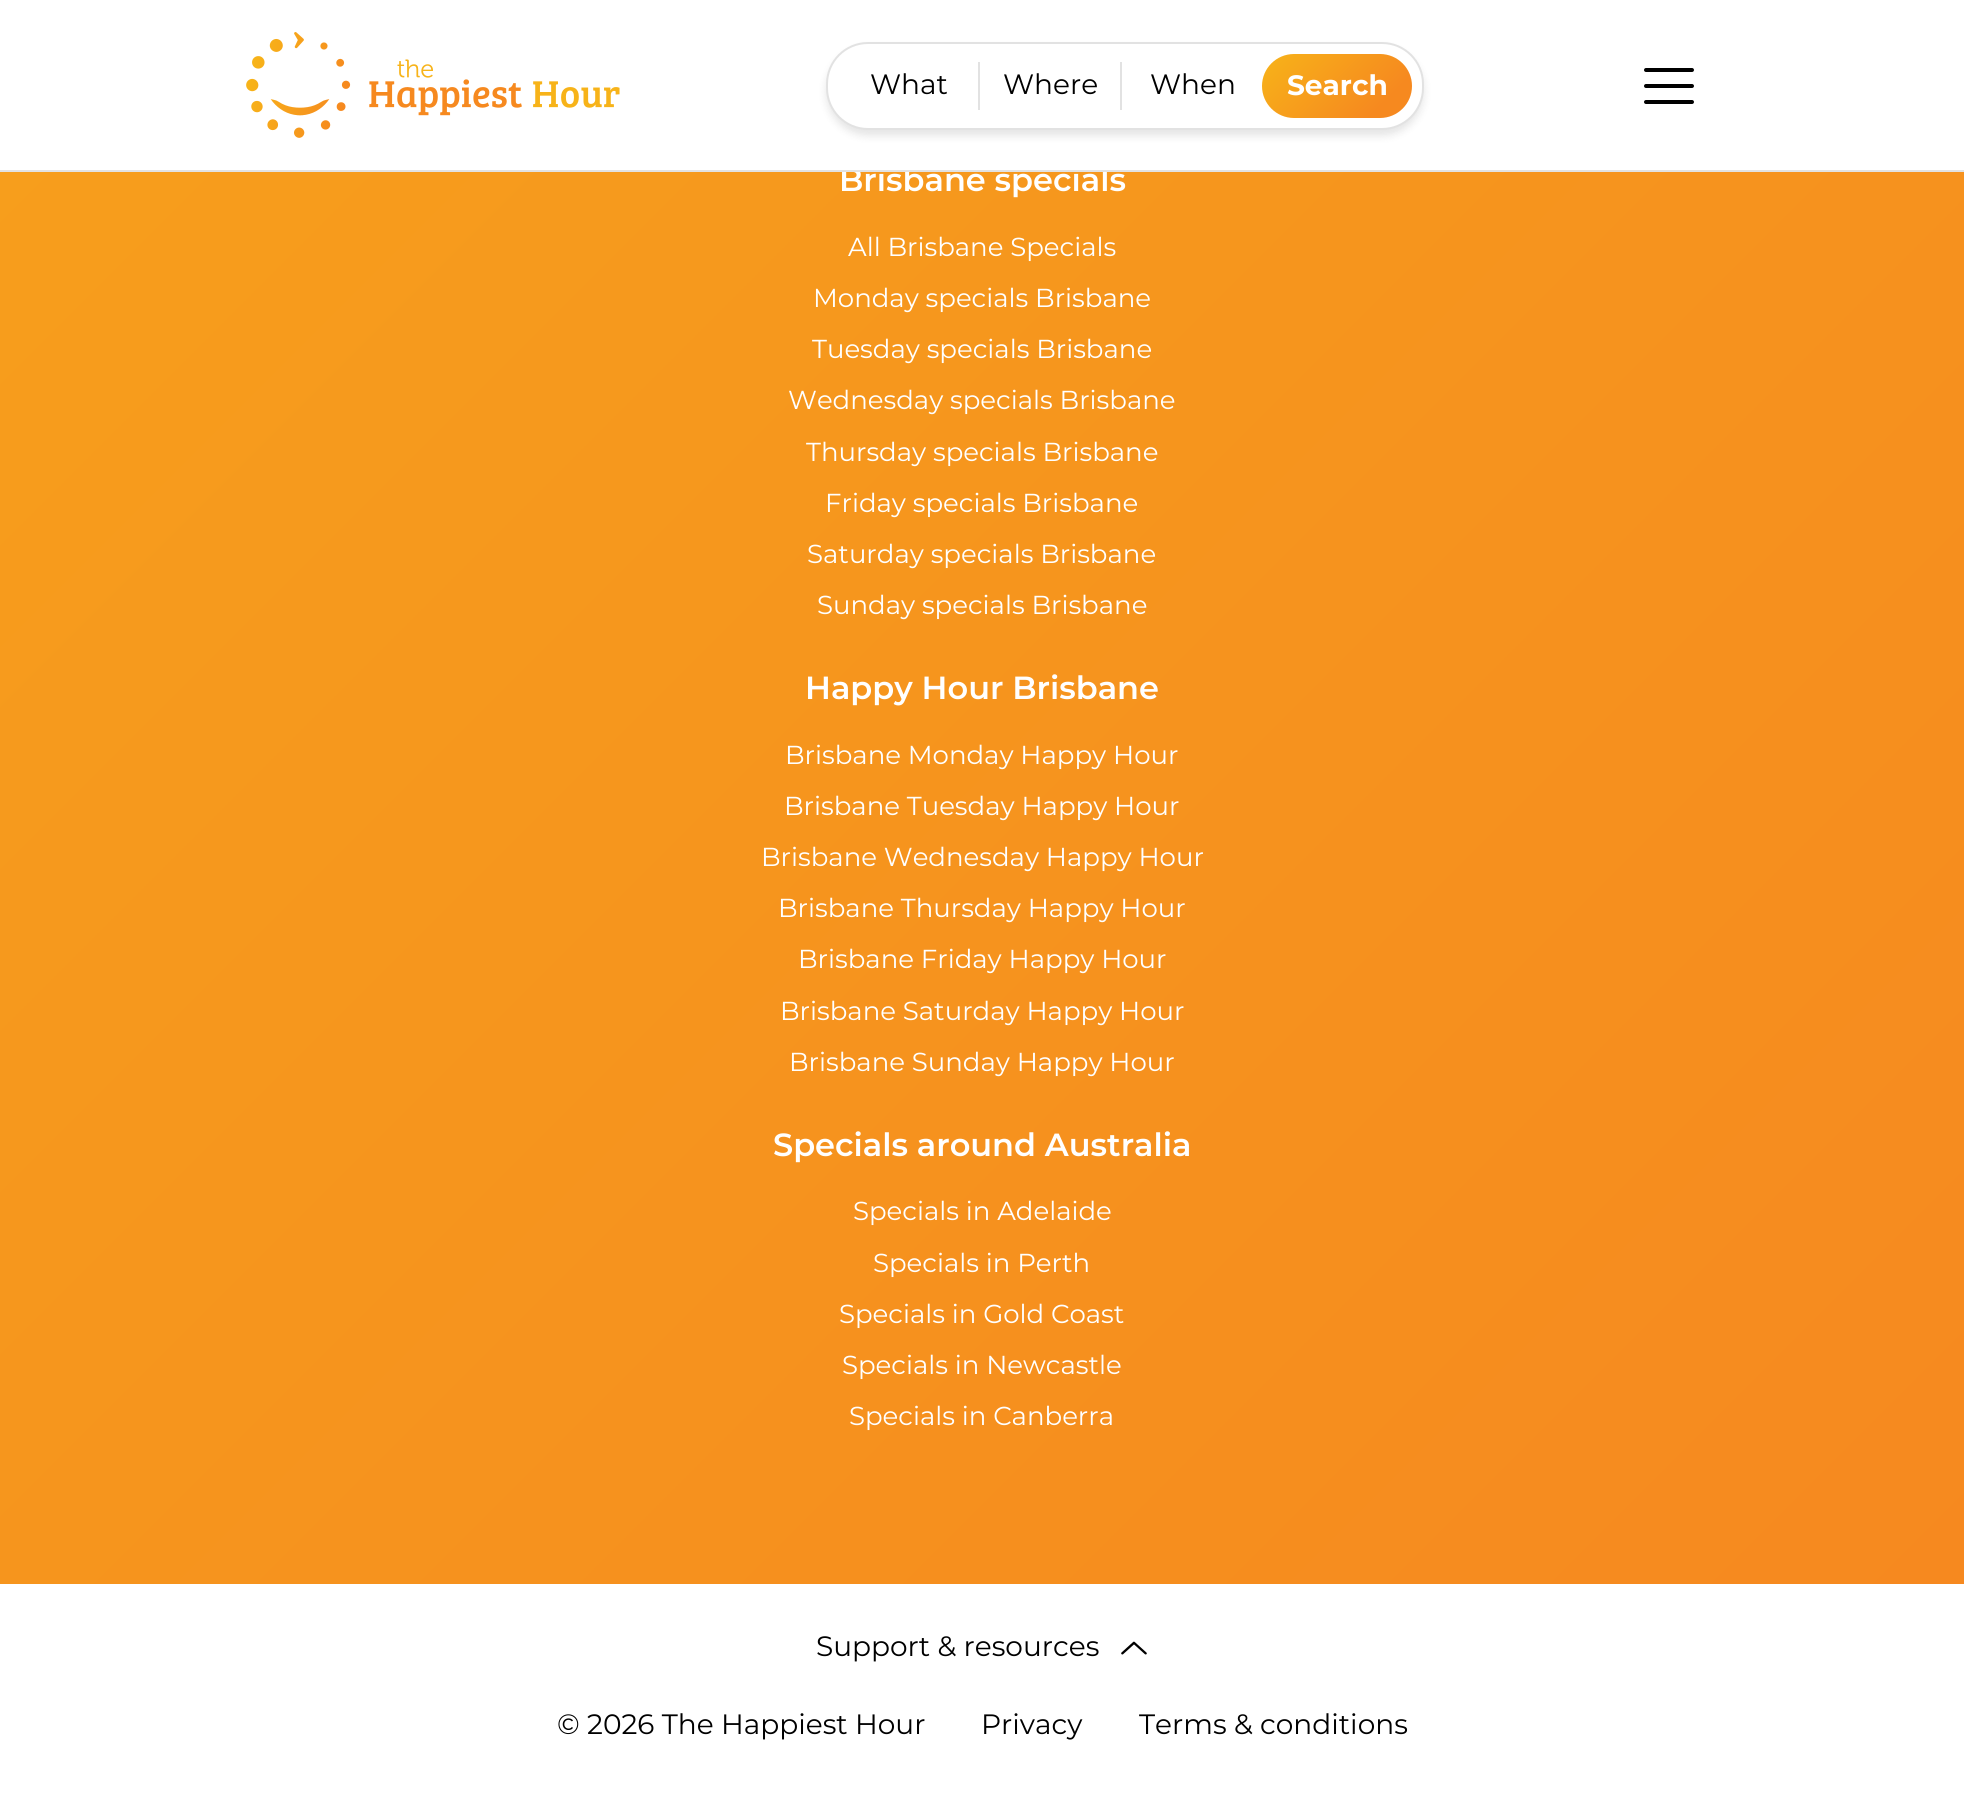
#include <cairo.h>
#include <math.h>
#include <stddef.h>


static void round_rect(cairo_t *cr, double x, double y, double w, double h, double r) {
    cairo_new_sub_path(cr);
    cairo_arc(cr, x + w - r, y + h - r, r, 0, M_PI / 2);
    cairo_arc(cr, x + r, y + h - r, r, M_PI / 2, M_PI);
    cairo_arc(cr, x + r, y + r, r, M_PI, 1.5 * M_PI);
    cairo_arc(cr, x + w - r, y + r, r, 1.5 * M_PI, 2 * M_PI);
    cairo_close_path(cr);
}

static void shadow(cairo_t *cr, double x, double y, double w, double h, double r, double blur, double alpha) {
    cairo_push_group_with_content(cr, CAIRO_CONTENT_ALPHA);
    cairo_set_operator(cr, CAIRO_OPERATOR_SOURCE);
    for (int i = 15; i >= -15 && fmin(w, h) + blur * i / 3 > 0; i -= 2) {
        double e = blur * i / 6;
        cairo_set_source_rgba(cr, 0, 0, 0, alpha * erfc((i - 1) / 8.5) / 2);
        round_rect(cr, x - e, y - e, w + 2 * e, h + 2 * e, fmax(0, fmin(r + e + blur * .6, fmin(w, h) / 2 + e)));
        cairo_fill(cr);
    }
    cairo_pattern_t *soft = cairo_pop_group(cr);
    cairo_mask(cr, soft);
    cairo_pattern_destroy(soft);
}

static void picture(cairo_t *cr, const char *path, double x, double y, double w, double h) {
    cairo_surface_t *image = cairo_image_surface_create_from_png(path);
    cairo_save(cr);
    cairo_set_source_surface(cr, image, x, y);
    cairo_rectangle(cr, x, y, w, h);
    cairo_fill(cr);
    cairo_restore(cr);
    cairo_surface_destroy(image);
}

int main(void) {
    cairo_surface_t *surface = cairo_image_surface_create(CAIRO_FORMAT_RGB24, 1964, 1808);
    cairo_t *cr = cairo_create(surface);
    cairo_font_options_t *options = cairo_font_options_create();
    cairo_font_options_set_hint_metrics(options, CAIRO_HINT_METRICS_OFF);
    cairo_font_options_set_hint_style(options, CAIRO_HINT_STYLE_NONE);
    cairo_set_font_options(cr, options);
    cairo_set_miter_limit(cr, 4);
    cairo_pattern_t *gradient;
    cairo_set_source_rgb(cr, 1, 1, 1);
    cairo_paint(cr);
    gradient = cairo_pattern_create_linear(-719, -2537, 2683, 865);
    cairo_pattern_add_color_stop_rgba(gradient, 0, 0.969, 0.702, 0.098, 1);
    cairo_pattern_add_color_stop_rgba(gradient, 1, 0.965, 0.537, 0.122, 1);
    cairo_set_source(cr, gradient);
    cairo_pattern_destroy(gradient);
    cairo_rectangle(cr, 0, 172, 1964, 1412);
    cairo_fill(cr);
    cairo_select_font_face(cr, "Montserrat SemiBold", CAIRO_FONT_SLANT_NORMAL, CAIRO_FONT_WEIGHT_NORMAL);
    cairo_set_font_size(cr, 32);
    cairo_set_source_rgb(cr, 1, 1, 1);
    cairo_move_to(cr, 839, 191);
    cairo_show_text(cr, "Brisbane specials");
    cairo_set_source_rgb(cr, 0.886, 0.886, 0.886);
    cairo_rectangle(cr, 0, 170, 1964, 2);
    cairo_fill(cr);
    picture(cr, "img1.png", 246, 32, 374, 106);
    cairo_set_source_rgb(cr, 0, 0, 0);
    shadow(cr, 826, 48, 598, 88, 42, 4, 0.1);
    cairo_set_source_rgb(cr, 1, 1, 1);
    round_rect(cr, 827, 43, 596, 86, 41);
    cairo_fill_preserve(cr);
    cairo_set_source_rgb(cr, 0.886, 0.886, 0.886);
    cairo_stroke(cr);
    cairo_select_font_face(cr, "Montserrat", CAIRO_FONT_SLANT_NORMAL, CAIRO_FONT_WEIGHT_NORMAL);
    cairo_set_font_size(cr, 28);
    cairo_set_source_rgb(cr, 0, 0, 0);
    cairo_move_to(cr, 870, 94);
    cairo_show_text(cr, "What");
    cairo_set_source_rgb(cr, 0.886, 0.886, 0.886);
    cairo_rectangle(cr, 1120, 62, 2, 48);
    cairo_fill(cr);
    cairo_rectangle(cr, 978, 62, 2, 48);
    cairo_fill(cr);
    cairo_set_source_rgb(cr, 0, 0, 0);
    cairo_move_to(cr, 1003, 94);
    cairo_show_text(cr, "Where");
    cairo_move_to(cr, 1150, 94);
    cairo_show_text(cr, "When");
    gradient = cairo_pattern_create_linear(1359, -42, 1616, 214);
    cairo_pattern_add_color_stop_rgba(gradient, 0, 0.969, 0.702, 0.098, 1);
    cairo_pattern_add_color_stop_rgba(gradient, 0.33, 0.965, 0.537, 0.122, 1);
    cairo_pattern_add_color_stop_rgba(gradient, 0.67, 0.965, 0.537, 0.122, 1);
    cairo_pattern_add_color_stop_rgba(gradient, 1, 0.969, 0.702, 0.098, 1);
    cairo_set_source(cr, gradient);
    cairo_pattern_destroy(gradient);
    round_rect(cr, 1262, 54, 150, 64, 32);
    cairo_fill(cr);
    cairo_select_font_face(cr, "Montserrat", CAIRO_FONT_SLANT_NORMAL, CAIRO_FONT_WEIGHT_BOLD);
    cairo_set_source_rgb(cr, 1, 1, 1);
    cairo_move_to(cr, 1287, 95);
    cairo_show_text(cr, "Search");
    cairo_set_source_rgb(cr, 0, 0, 0);
    round_rect(cr, 1644, 68, 50, 4, 2);
    cairo_fill(cr);
    round_rect(cr, 1644, 84, 50, 4, 2);
    cairo_fill(cr);
    round_rect(cr, 1644, 100, 50, 4, 2);
    cairo_fill(cr);
    cairo_select_font_face(cr, "Montserrat", CAIRO_FONT_SLANT_NORMAL, CAIRO_FONT_WEIGHT_NORMAL);
    cairo_set_font_size(cr, 26);
    cairo_set_source_rgb(cr, 1, 1, 1);
    cairo_move_to(cr, 848, 256);
    cairo_show_text(cr, "All Brisbane Specials");
    cairo_move_to(cr, 813, 307);
    cairo_show_text(cr, "Monday specials Brisbane");
    cairo_move_to(cr, 812, 358);
    cairo_show_text(cr, "Tuesday specials Brisbane");
    cairo_move_to(cr, 788, 409);
    cairo_show_text(cr, "Wednesday specials Brisbane");
    cairo_move_to(cr, 806, 461);
    cairo_show_text(cr, "Thursday specials Brisbane");
    cairo_move_to(cr, 825, 512);
    cairo_show_text(cr, "Friday specials Brisbane");
    cairo_move_to(cr, 807, 563);
    cairo_show_text(cr, "Saturday specials Brisbane");
    cairo_move_to(cr, 817, 614);
    cairo_show_text(cr, "Sunday specials Brisbane");
    cairo_select_font_face(cr, "Montserrat SemiBold", CAIRO_FONT_SLANT_NORMAL, CAIRO_FONT_WEIGHT_NORMAL);
    cairo_set_font_size(cr, 32);
    cairo_move_to(cr, 805, 699);
    cairo_show_text(cr, "Happy Hour Brisbane");
    cairo_select_font_face(cr, "Montserrat", CAIRO_FONT_SLANT_NORMAL, CAIRO_FONT_WEIGHT_NORMAL);
    cairo_set_font_size(cr, 26);
    cairo_move_to(cr, 785, 764);
    cairo_show_text(cr, "Brisbane Monday Happy Hour");
    cairo_move_to(cr, 784, 815);
    cairo_show_text(cr, "Brisbane Tuesday Happy Hour");
    cairo_move_to(cr, 761, 866);
    cairo_show_text(cr, "Brisbane Wednesday Happy Hour");
    cairo_move_to(cr, 778, 917);
    cairo_show_text(cr, "Brisbane Thursday Happy Hour");
    cairo_move_to(cr, 798, 968);
    cairo_show_text(cr, "Brisbane Friday Happy Hour");
    cairo_move_to(cr, 780, 1020);
    cairo_show_text(cr, "Brisbane Saturday Happy Hour");
    cairo_move_to(cr, 789, 1071);
    cairo_show_text(cr, "Brisbane Sunday Happy Hour");
    cairo_select_font_face(cr, "Montserrat SemiBold", CAIRO_FONT_SLANT_NORMAL, CAIRO_FONT_WEIGHT_NORMAL);
    cairo_set_font_size(cr, 32);
    cairo_move_to(cr, 773, 1156);
    cairo_show_text(cr, "Specials around Australia");
    cairo_select_font_face(cr, "Montserrat", CAIRO_FONT_SLANT_NORMAL, CAIRO_FONT_WEIGHT_NORMAL);
    cairo_set_font_size(cr, 26);
    cairo_move_to(cr, 853, 1220);
    cairo_show_text(cr, "Specials in Adelaide");
    cairo_move_to(cr, 873, 1272);
    cairo_show_text(cr, "Specials in Perth");
    cairo_move_to(cr, 839, 1323);
    cairo_show_text(cr, "Specials in Gold Coast");
    cairo_move_to(cr, 842, 1374);
    cairo_show_text(cr, "Specials in Newcastle");
    cairo_move_to(cr, 849, 1425);
    cairo_show_text(cr, "Specials in Canberra");
    cairo_set_font_size(cr, 28);
    cairo_set_source_rgb(cr, 0, 0, 0);
    cairo_move_to(cr, 816, 1656);
    cairo_show_text(cr, "Support & resources");
    picture(cr, "img2.png", 1121, 1641, 26, 14);
    cairo_move_to(cr, 557, 1734);
    cairo_show_text(cr, "© 2026 The Happiest Hour");
    cairo_move_to(cr, 981, 1734);
    cairo_show_text(cr, "Privacy");
    cairo_move_to(cr, 1139, 1734);
    cairo_show_text(cr, "Terms & conditions");
    cairo_surface_write_to_png(surface, "page.png");
    cairo_font_options_destroy(options);
    cairo_destroy(cr);
    cairo_surface_destroy(surface);
    return 0;
}
